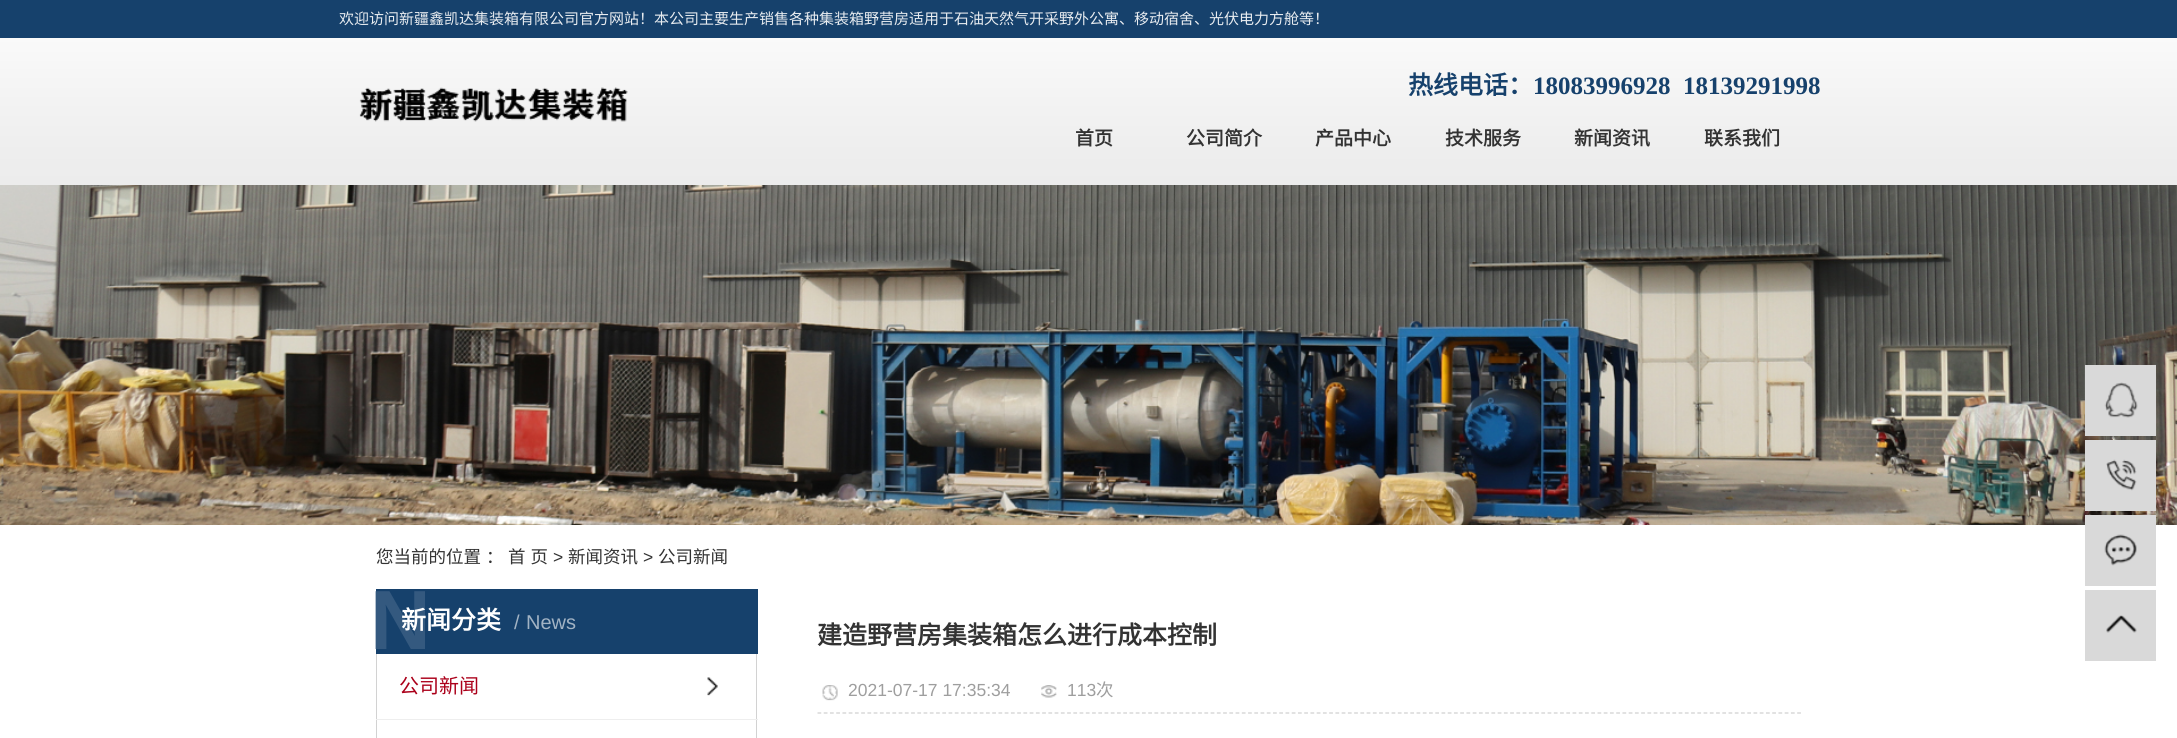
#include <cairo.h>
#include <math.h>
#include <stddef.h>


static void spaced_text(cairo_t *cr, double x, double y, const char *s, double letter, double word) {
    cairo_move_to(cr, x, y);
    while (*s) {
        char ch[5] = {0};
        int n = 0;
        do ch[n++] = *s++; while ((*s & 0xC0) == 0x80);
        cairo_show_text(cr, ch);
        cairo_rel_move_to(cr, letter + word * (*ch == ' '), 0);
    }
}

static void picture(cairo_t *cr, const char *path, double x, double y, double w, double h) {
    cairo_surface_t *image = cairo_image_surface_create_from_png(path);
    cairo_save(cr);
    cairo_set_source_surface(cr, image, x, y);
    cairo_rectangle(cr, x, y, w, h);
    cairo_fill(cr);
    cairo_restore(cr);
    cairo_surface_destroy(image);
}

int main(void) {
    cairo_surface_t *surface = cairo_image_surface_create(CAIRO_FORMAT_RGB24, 2177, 738);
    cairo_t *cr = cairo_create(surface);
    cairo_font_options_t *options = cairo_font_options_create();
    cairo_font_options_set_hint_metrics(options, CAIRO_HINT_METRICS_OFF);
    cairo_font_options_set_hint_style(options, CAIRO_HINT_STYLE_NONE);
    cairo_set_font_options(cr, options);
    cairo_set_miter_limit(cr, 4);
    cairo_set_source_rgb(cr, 1, 1, 1);
    cairo_paint(cr);
    cairo_set_source_rgb(cr, 0.086, 0.255, 0.424);
    cairo_rectangle(cr, 0, 0, 2177, 38);
    cairo_fill(cr);
    cairo_select_font_face(cr, "Noto Sans CJK SC", CAIRO_FONT_SLANT_NORMAL, CAIRO_FONT_WEIGHT_NORMAL);
    cairo_set_font_size(cr, 15);
    cairo_set_source_rgb(cr, 0.91, 0.925, 0.941);
    cairo_move_to(cr, 339, 24);
    cairo_show_text(cr, "欢迎访问新疆鑫凯达集装箱有限公司官方网站！本公司主要生产销售各种集装箱野营房适用于石油天然气开采野外公寓、移动宿舍、光伏电力方舱等！");
    picture(cr, "img1.png", 0, 38, 2177, 147);
    cairo_select_font_face(cr, "Noto Sans CJK SC", CAIRO_FONT_SLANT_NORMAL, CAIRO_FONT_WEIGHT_BOLD);
    cairo_set_font_size(cr, 25);
    cairo_set_source_rgb(cr, 0.086, 0.255, 0.424);
    cairo_move_to(cr, 1408, 94);
    cairo_show_text(cr, "热线电话：");
    cairo_select_font_face(cr, "Liberation Serif", CAIRO_FONT_SLANT_NORMAL, CAIRO_FONT_WEIGHT_BOLD);
    cairo_move_to(cr, 1533, 94);
    cairo_show_text(cr, "18083996928  18139291998");
    picture(cr, "img2.png", 359, 87, 269, 35);
    cairo_select_font_face(cr, "Noto Sans CJK SC", CAIRO_FONT_SLANT_NORMAL, CAIRO_FONT_WEIGHT_BOLD);
    cairo_set_font_size(cr, 19);
    cairo_set_source_rgb(cr, 0.2, 0.2, 0.2);
    cairo_move_to(cr, 1075, 145);
    cairo_show_text(cr, "首页");
    cairo_move_to(cr, 1186, 145);
    cairo_show_text(cr, "公司简介");
    cairo_move_to(cr, 1315, 145);
    cairo_show_text(cr, "产品中心");
    cairo_move_to(cr, 1445, 145);
    cairo_show_text(cr, "技术服务");
    cairo_move_to(cr, 1574, 145);
    cairo_show_text(cr, "新闻资讯");
    cairo_move_to(cr, 1704, 145);
    cairo_show_text(cr, "联系我们");
    picture(cr, "img3.png", 0, 185, 2177, 340);
    cairo_select_font_face(cr, "Noto Sans CJK SC", CAIRO_FONT_SLANT_NORMAL, CAIRO_FONT_WEIGHT_NORMAL);
    cairo_set_font_size(cr, 17.5);
    spaced_text(cr, 376, 563, "您当前的位置 ：", 0, 1);
    spaced_text(cr, 508, 563, "首 页", 0, 1);
    cairo_select_font_face(cr, "Liberation Sans", CAIRO_FONT_SLANT_NORMAL, CAIRO_FONT_WEIGHT_NORMAL);
    cairo_move_to(cr, 553, 563);
    cairo_show_text(cr, ">");
    cairo_select_font_face(cr, "Noto Sans CJK SC", CAIRO_FONT_SLANT_NORMAL, CAIRO_FONT_WEIGHT_NORMAL);
    cairo_move_to(cr, 568, 563);
    cairo_show_text(cr, "新闻资讯");
    cairo_select_font_face(cr, "Liberation Sans", CAIRO_FONT_SLANT_NORMAL, CAIRO_FONT_WEIGHT_NORMAL);
    cairo_move_to(cr, 643, 563);
    cairo_show_text(cr, ">");
    cairo_select_font_face(cr, "Noto Sans CJK SC", CAIRO_FONT_SLANT_NORMAL, CAIRO_FONT_WEIGHT_NORMAL);
    cairo_move_to(cr, 658, 563);
    cairo_show_text(cr, "公司新闻");
    cairo_set_source_rgb(cr, 0.851, 0.851, 0.851);
    cairo_rectangle(cr, 2085, 365, 71, 71);
    cairo_fill(cr);
    picture(cr, "img4.png", 2104, 382, 34, 36);
    cairo_rectangle(cr, 2085, 440, 71, 71);
    cairo_fill(cr);
    picture(cr, "img5.png", 2106, 459, 31, 32);
    cairo_rectangle(cr, 2085, 515, 71, 71);
    cairo_fill(cr);
    picture(cr, "img6.png", 2104, 534, 33, 32);
    cairo_rectangle(cr, 2085, 590, 71, 71);
    cairo_fill(cr);
    picture(cr, "img7.png", 2106, 615, 31, 18);
    cairo_set_source_rgb(cr, 0.086, 0.255, 0.424);
    cairo_rectangle(cr, 376, 589, 382, 65);
    cairo_fill(cr);
    cairo_select_font_face(cr, "Liberation Sans", CAIRO_FONT_SLANT_NORMAL, CAIRO_FONT_WEIGHT_BOLD);
    cairo_set_font_size(cr, 84);
    cairo_set_source_rgb(cr, 0.204, 0.349, 0.498);
    cairo_move_to(cr, 370, 649);
    cairo_show_text(cr, "N");
    cairo_select_font_face(cr, "Noto Sans CJK SC", CAIRO_FONT_SLANT_NORMAL, CAIRO_FONT_WEIGHT_BOLD);
    cairo_set_font_size(cr, 25);
    cairo_set_source_rgb(cr, 1, 1, 1);
    cairo_move_to(cr, 401, 629);
    cairo_show_text(cr, "新闻分类");
    cairo_select_font_face(cr, "Liberation Sans", CAIRO_FONT_SLANT_NORMAL, CAIRO_FONT_WEIGHT_NORMAL);
    cairo_set_font_size(cr, 20);
    cairo_set_source_rgb(cr, 0.635, 0.702, 0.769);
    cairo_move_to(cr, 514, 629);
    cairo_show_text(cr, "/");
    cairo_move_to(cr, 526, 629);
    cairo_show_text(cr, "News");
    cairo_set_source_rgb(cr, 0.824, 0.824, 0.824);
    cairo_rectangle(cr, 756, 654, 1, 84);
    cairo_fill(cr);
    cairo_rectangle(cr, 376, 654, 1, 84);
    cairo_fill(cr);
    cairo_set_source_rgb(cr, 0.933, 0.933, 0.933);
    cairo_rectangle(cr, 376, 719, 382, 1);
    cairo_fill(cr);
    cairo_select_font_face(cr, "Noto Sans CJK SC", CAIRO_FONT_SLANT_NORMAL, CAIRO_FONT_WEIGHT_NORMAL);
    cairo_set_source_rgb(cr, 0.671, 0, 0.102);
    cairo_move_to(cr, 399, 693);
    cairo_show_text(cr, "公司新闻");
    picture(cr, "img8.png", 707, 677, 11, 19);
    cairo_select_font_face(cr, "Noto Sans CJK SC", CAIRO_FONT_SLANT_NORMAL, CAIRO_FONT_WEIGHT_BOLD);
    cairo_set_font_size(cr, 25);
    cairo_set_source_rgb(cr, 0.2, 0.2, 0.2);
    cairo_move_to(cr, 817, 644);
    cairo_show_text(cr, "建造野营房集装箱怎么进行成本控制");
    cairo_new_path(cr);
    cairo_move_to(cr, 817.5, 713);
    cairo_line_to(cr, 1801, 713);
    cairo_set_source_rgb(cr, 0.812, 0.812, 0.812);
    cairo_set_line_width(cr, 1.2);
    cairo_set_dash(cr, (double[]){3.75, 2.49}, 2, 0);
    cairo_stroke(cr);
    picture(cr, "img9.png", 822, 685, 16, 16);
    cairo_select_font_face(cr, "Liberation Sans", CAIRO_FONT_SLANT_NORMAL, CAIRO_FONT_WEIGHT_NORMAL);
    cairo_set_font_size(cr, 17.5);
    cairo_set_source_rgb(cr, 0.62, 0.62, 0.62);
    cairo_move_to(cr, 848, 696);
    cairo_show_text(cr, "2021-07-17 17:35:34");
    picture(cr, "img10.png", 1041, 685, 16, 13);
    cairo_move_to(cr, 1067, 696);
    cairo_show_text(cr, "113");
    cairo_select_font_face(cr, "Noto Sans CJK SC", CAIRO_FONT_SLANT_NORMAL, CAIRO_FONT_WEIGHT_NORMAL);
    cairo_move_to(cr, 1096, 696);
    cairo_show_text(cr, "次");
    cairo_surface_write_to_png(surface, "page.png");
    cairo_font_options_destroy(options);
    cairo_destroy(cr);
    cairo_surface_destroy(surface);
    return 0;
}
